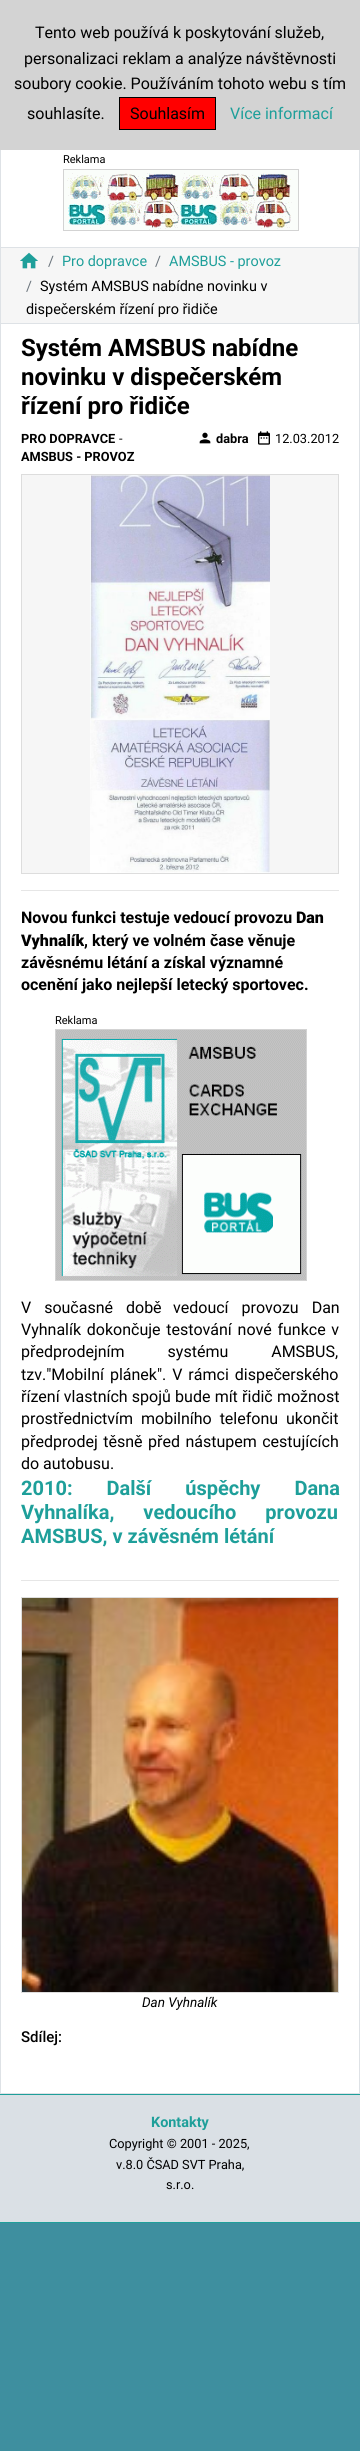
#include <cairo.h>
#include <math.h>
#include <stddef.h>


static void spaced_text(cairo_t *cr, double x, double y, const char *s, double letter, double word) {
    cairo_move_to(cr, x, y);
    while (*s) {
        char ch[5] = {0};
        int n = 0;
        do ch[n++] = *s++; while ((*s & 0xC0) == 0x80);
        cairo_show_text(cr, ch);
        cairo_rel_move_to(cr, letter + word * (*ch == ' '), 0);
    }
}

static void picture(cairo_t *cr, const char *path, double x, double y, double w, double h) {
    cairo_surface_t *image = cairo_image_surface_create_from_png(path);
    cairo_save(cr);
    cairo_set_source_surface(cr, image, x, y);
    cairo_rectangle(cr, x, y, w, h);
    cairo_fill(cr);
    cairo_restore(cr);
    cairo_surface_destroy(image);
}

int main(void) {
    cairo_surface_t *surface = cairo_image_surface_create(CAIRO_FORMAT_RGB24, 360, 2451);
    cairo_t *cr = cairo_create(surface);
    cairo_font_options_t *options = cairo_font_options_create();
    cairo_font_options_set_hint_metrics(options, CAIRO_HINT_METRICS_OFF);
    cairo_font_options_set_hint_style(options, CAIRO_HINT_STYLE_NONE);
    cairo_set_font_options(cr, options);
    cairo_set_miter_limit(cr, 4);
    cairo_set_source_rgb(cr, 0.243, 0.561, 0.624);
    cairo_paint(cr);
    cairo_set_source_rgb(cr, 1, 1, 1);
    cairo_rectangle(cr, 1, 150, 358, 1943);
    cairo_fill(cr);
    cairo_rectangle(cr, 0.5, 0.5, 359, 2093);
    cairo_set_source_rgb(cr, 0.871, 0.886, 0.902);
    cairo_set_line_width(cr, 1);
    cairo_stroke(cr);
    cairo_set_source_rgb(cr, 0.827, 0.827, 0.827);
    cairo_rectangle(cr, 0, 0, 360, 150);
    cairo_fill(cr);
    cairo_select_font_face(cr, "Roboto", CAIRO_FONT_SLANT_NORMAL, CAIRO_FONT_WEIGHT_NORMAL);
    cairo_set_font_size(cr, 16);
    cairo_set_source_rgb(cr, 0, 0, 0);
    cairo_move_to(cr, 35, 38);
    cairo_show_text(cr, "Tento web používá k poskytování služeb,");
    cairo_move_to(cr, 24, 64);
    cairo_show_text(cr, "personalizaci reklam a analýze návštěvnosti");
    cairo_move_to(cr, 14, 89);
    cairo_show_text(cr, "soubory cookie. Používáním tohoto webu s tím");
    cairo_move_to(cr, 27, 119);
    cairo_show_text(cr, "souhlasíte.");
    cairo_set_source_rgb(cr, 1, 0, 0);
    cairo_rectangle(cr, 119.5, 97.5, 96, 32);
    cairo_fill_preserve(cr);
    cairo_set_source_rgb(cr, 0, 0, 0);
    cairo_stroke(cr);
    cairo_move_to(cr, 130, 119);
    cairo_show_text(cr, "Souhlasím");
    cairo_set_source_rgb(cr, 0.118, 0.624, 0.604);
    cairo_move_to(cr, 230, 119);
    cairo_show_text(cr, "Více informací");
    cairo_set_font_size(cr, 11);
    cairo_set_source_rgb(cr, 0, 0, 0);
    cairo_move_to(cr, 63, 163);
    cairo_show_text(cr, "Reklama");
    cairo_rectangle(cr, 63.5, 169.5, 235, 61);
    cairo_set_source_rgb(cr, 0.827, 0.827, 0.827);
    cairo_stroke(cr);
    picture(cr, "img1.png", 64, 170, 234, 60);
    cairo_set_source_rgb(cr, 0.961, 0.961, 0.961);
    cairo_rectangle(cr, 1, 248, 357, 75);
    cairo_fill(cr);
    cairo_set_source_rgb(cr, 0.871, 0.886, 0.902);
    cairo_rectangle(cr, 1, 247, 358, 1);
    cairo_fill(cr);
    cairo_rectangle(cr, 358, 247, 1, 77);
    cairo_fill(cr);
    cairo_rectangle(cr, 1, 323, 358, 1);
    cairo_fill(cr);
    picture(cr, "img2.png", 20, 252, 18, 17);
    cairo_set_font_size(cr, 14.4);
    cairo_set_source_rgb(cr, 0.424, 0.459, 0.49);
    cairo_move_to(cr, 48, 266);
    cairo_show_text(cr, "/");
    cairo_set_source_rgb(cr, 0.118, 0.624, 0.604);
    cairo_move_to(cr, 62, 266);
    cairo_show_text(cr, "Pro dopravce");
    cairo_set_source_rgb(cr, 0.424, 0.459, 0.49);
    cairo_move_to(cr, 155, 266);
    cairo_show_text(cr, "/");
    cairo_set_source_rgb(cr, 0.118, 0.624, 0.604);
    cairo_move_to(cr, 169, 266);
    cairo_show_text(cr, "AMSBUS - provoz");
    cairo_set_source_rgb(cr, 0.424, 0.459, 0.49);
    cairo_move_to(cr, 26, 291);
    cairo_show_text(cr, "/");
    cairo_set_source_rgb(cr, 0, 0, 0);
    cairo_move_to(cr, 40, 291);
    cairo_show_text(cr, "Systém AMSBUS nabídne novinku v");
    cairo_move_to(cr, 26, 314);
    cairo_show_text(cr, "dispečerském řízení pro řidiče");
    cairo_select_font_face(cr, "Roboto", CAIRO_FONT_SLANT_NORMAL, CAIRO_FONT_WEIGHT_BOLD);
    cairo_set_font_size(cr, 24);
    cairo_move_to(cr, 21, 356);
    cairo_show_text(cr, "Systém AMSBUS nabídne");
    cairo_move_to(cr, 21, 385);
    cairo_show_text(cr, "novinku v dispečerském");
    cairo_move_to(cr, 21, 414);
    cairo_show_text(cr, "řízení pro řidiče");
    cairo_set_font_size(cr, 12.75);
    cairo_move_to(cr, 21, 443);
    cairo_show_text(cr, "PRO DOPRAVCE");
    cairo_select_font_face(cr, "Roboto", CAIRO_FONT_SLANT_NORMAL, CAIRO_FONT_WEIGHT_NORMAL);
    cairo_move_to(cr, 119, 443);
    cairo_show_text(cr, "-");
    cairo_select_font_face(cr, "Roboto", CAIRO_FONT_SLANT_NORMAL, CAIRO_FONT_WEIGHT_BOLD);
    cairo_move_to(cr, 21, 461);
    cairo_show_text(cr, "AMSBUS - PROVOZ");
    picture(cr, "img3.png", 199, 432, 12, 12);
    cairo_move_to(cr, 216, 443);
    cairo_show_text(cr, "dabra");
    picture(cr, "img4.png", 258, 431, 12, 14);
    cairo_select_font_face(cr, "Roboto", CAIRO_FONT_SLANT_NORMAL, CAIRO_FONT_WEIGHT_NORMAL);
    cairo_move_to(cr, 275, 443);
    cairo_show_text(cr, "12.03.2012");
    cairo_set_source_rgb(cr, 0.961, 0.961, 0.961);
    cairo_rectangle(cr, 21.5, 474.5, 317, 399);
    cairo_fill_preserve(cr);
    cairo_set_source_rgb(cr, 0.867, 0.867, 0.867);
    cairo_stroke(cr);
    picture(cr, "img5.png", 90, 475, 180, 398);
    cairo_set_source_rgb(cr, 0.902, 0.902, 0.902);
    cairo_rectangle(cr, 21, 890, 318, 1);
    cairo_fill(cr);
    cairo_select_font_face(cr, "Roboto", CAIRO_FONT_SLANT_NORMAL, CAIRO_FONT_WEIGHT_BOLD);
    cairo_set_font_size(cr, 16);
    cairo_set_source_rgb(cr, 0, 0, 0);
    cairo_move_to(cr, 21, 923);
    cairo_show_text(cr, "Novou funkci testuje vedoucí provozu");
    cairo_select_font_face(cr, "Roboto Black", CAIRO_FONT_SLANT_NORMAL, CAIRO_FONT_WEIGHT_NORMAL);
    cairo_move_to(cr, 296, 923);
    cairo_show_text(cr, "Dan");
    cairo_move_to(cr, 21, 946);
    cairo_show_text(cr, "Vyhnalík");
    cairo_select_font_face(cr, "Roboto", CAIRO_FONT_SLANT_NORMAL, CAIRO_FONT_WEIGHT_BOLD);
    cairo_move_to(cr, 84, 946);
    cairo_show_text(cr, ", který ve volném čase věnuje");
    cairo_move_to(cr, 21, 968);
    cairo_show_text(cr, "závěsnému létání a získal významné");
    cairo_move_to(cr, 21, 990);
    cairo_show_text(cr, "ocenění jako nejlepší letecký sportovec.");
    cairo_select_font_face(cr, "Roboto", CAIRO_FONT_SLANT_NORMAL, CAIRO_FONT_WEIGHT_NORMAL);
    cairo_set_font_size(cr, 11);
    cairo_move_to(cr, 55, 1024);
    cairo_show_text(cr, "Reklama");
    cairo_rectangle(cr, 55.5, 1029.5, 251, 251);
    cairo_set_source_rgb(cr, 0.827, 0.827, 0.827);
    cairo_stroke(cr);
    picture(cr, "img6.png", 56, 1030, 250, 250);
    cairo_set_font_size(cr, 16);
    cairo_set_source_rgb(cr, 0, 0, 0);
    spaced_text(cr, 21, 1313, "V současné době", 0, 9);
    spaced_text(cr, 173, 1313, "vedoucí provozu Dan", 0, 9);
    spaced_text(cr, 21, 1335, "Vyhnalík dokončuje testování nové funkce v", 0, 1.75);
    spaced_text(cr, 21, 1357, "předprodejním systému AMSBUS,", 0, 39);
    spaced_text(cr, 21, 1380, "tzv.\"Mobilní plánek\". V rámci dispečerského", 0, 2);
    spaced_text(cr, 21, 1402, "řízení vlastních spojů bude mít řidič možnost", 0, 0.25);
    spaced_text(cr, 21, 1424, "prostřednictvím mobilního telefonu ukončit", 0, 4);
    spaced_text(cr, 21, 1447, "předprodej těsně před nástupem cestujících", 0, 1.5);
    cairo_move_to(cr, 21, 1469);
    cairo_show_text(cr, "do autobusu.");
    cairo_select_font_face(cr, "Roboto", CAIRO_FONT_SLANT_NORMAL, CAIRO_FONT_WEIGHT_BOLD);
    cairo_set_font_size(cr, 20);
    cairo_set_source_rgb(cr, 0.118, 0.624, 0.604);
    spaced_text(cr, 21, 1495, "2010: Další úspěchy Dana", 0, 29);
    spaced_text(cr, 21, 1519, "Vyhnalíka, vedoucího provozu", 0, 24);
    cairo_move_to(cr, 21, 1543);
    cairo_show_text(cr, "AMSBUS, v závěsném létání");
    cairo_set_source_rgb(cr, 0.902, 0.902, 0.902);
    cairo_rectangle(cr, 21, 1580, 318, 1);
    cairo_fill(cr);
    cairo_rectangle(cr, 21.5, 1597.5, 317, 395);
    cairo_set_source_rgb(cr, 0.867, 0.867, 0.867);
    cairo_stroke(cr);
    picture(cr, "img7.png", 22, 1598, 316, 394);
    cairo_select_font_face(cr, "Roboto", CAIRO_FONT_SLANT_ITALIC, CAIRO_FONT_WEIGHT_NORMAL);
    cairo_set_font_size(cr, 13.5);
    cairo_set_source_rgb(cr, 0, 0, 0);
    cairo_move_to(cr, 142, 2007);
    cairo_show_text(cr, "Dan Vyhnalík");
    cairo_select_font_face(cr, "Roboto Medium", CAIRO_FONT_SLANT_NORMAL, CAIRO_FONT_WEIGHT_NORMAL);
    cairo_set_font_size(cr, 15);
    cairo_move_to(cr, 21, 2042);
    cairo_show_text(cr, "Sdílej:");
    cairo_set_source_rgb(cr, 0.855, 0.878, 0.898);
    cairo_rectangle(cr, 0, 2095, 360, 127);
    cairo_fill(cr);
    cairo_set_source_rgb(cr, 0.118, 0.624, 0.604);
    cairo_rectangle(cr, 0, 2094, 360, 1);
    cairo_fill(cr);
    cairo_rectangle(cr, 0, 2222, 360, 1);
    cairo_fill(cr);
    cairo_select_font_face(cr, "Roboto", CAIRO_FONT_SLANT_NORMAL, CAIRO_FONT_WEIGHT_BOLD);
    cairo_set_font_size(cr, 14.4);
    cairo_move_to(cr, 151, 2127);
    cairo_show_text(cr, "Kontakty");
    cairo_select_font_face(cr, "Roboto", CAIRO_FONT_SLANT_NORMAL, CAIRO_FONT_WEIGHT_NORMAL);
    cairo_set_font_size(cr, 12.75);
    cairo_set_source_rgb(cr, 0, 0, 0);
    cairo_move_to(cr, 109, 2148);
    cairo_show_text(cr, "Copyright © 2001 - 2025,");
    cairo_move_to(cr, 116, 2169);
    cairo_show_text(cr, "v.8.0 ČSAD SVT Praha,");
    cairo_move_to(cr, 166, 2189);
    cairo_show_text(cr, "s.r.o.");
    cairo_surface_write_to_png(surface, "page.png");
    cairo_font_options_destroy(options);
    cairo_destroy(cr);
    cairo_surface_destroy(surface);
    return 0;
}
